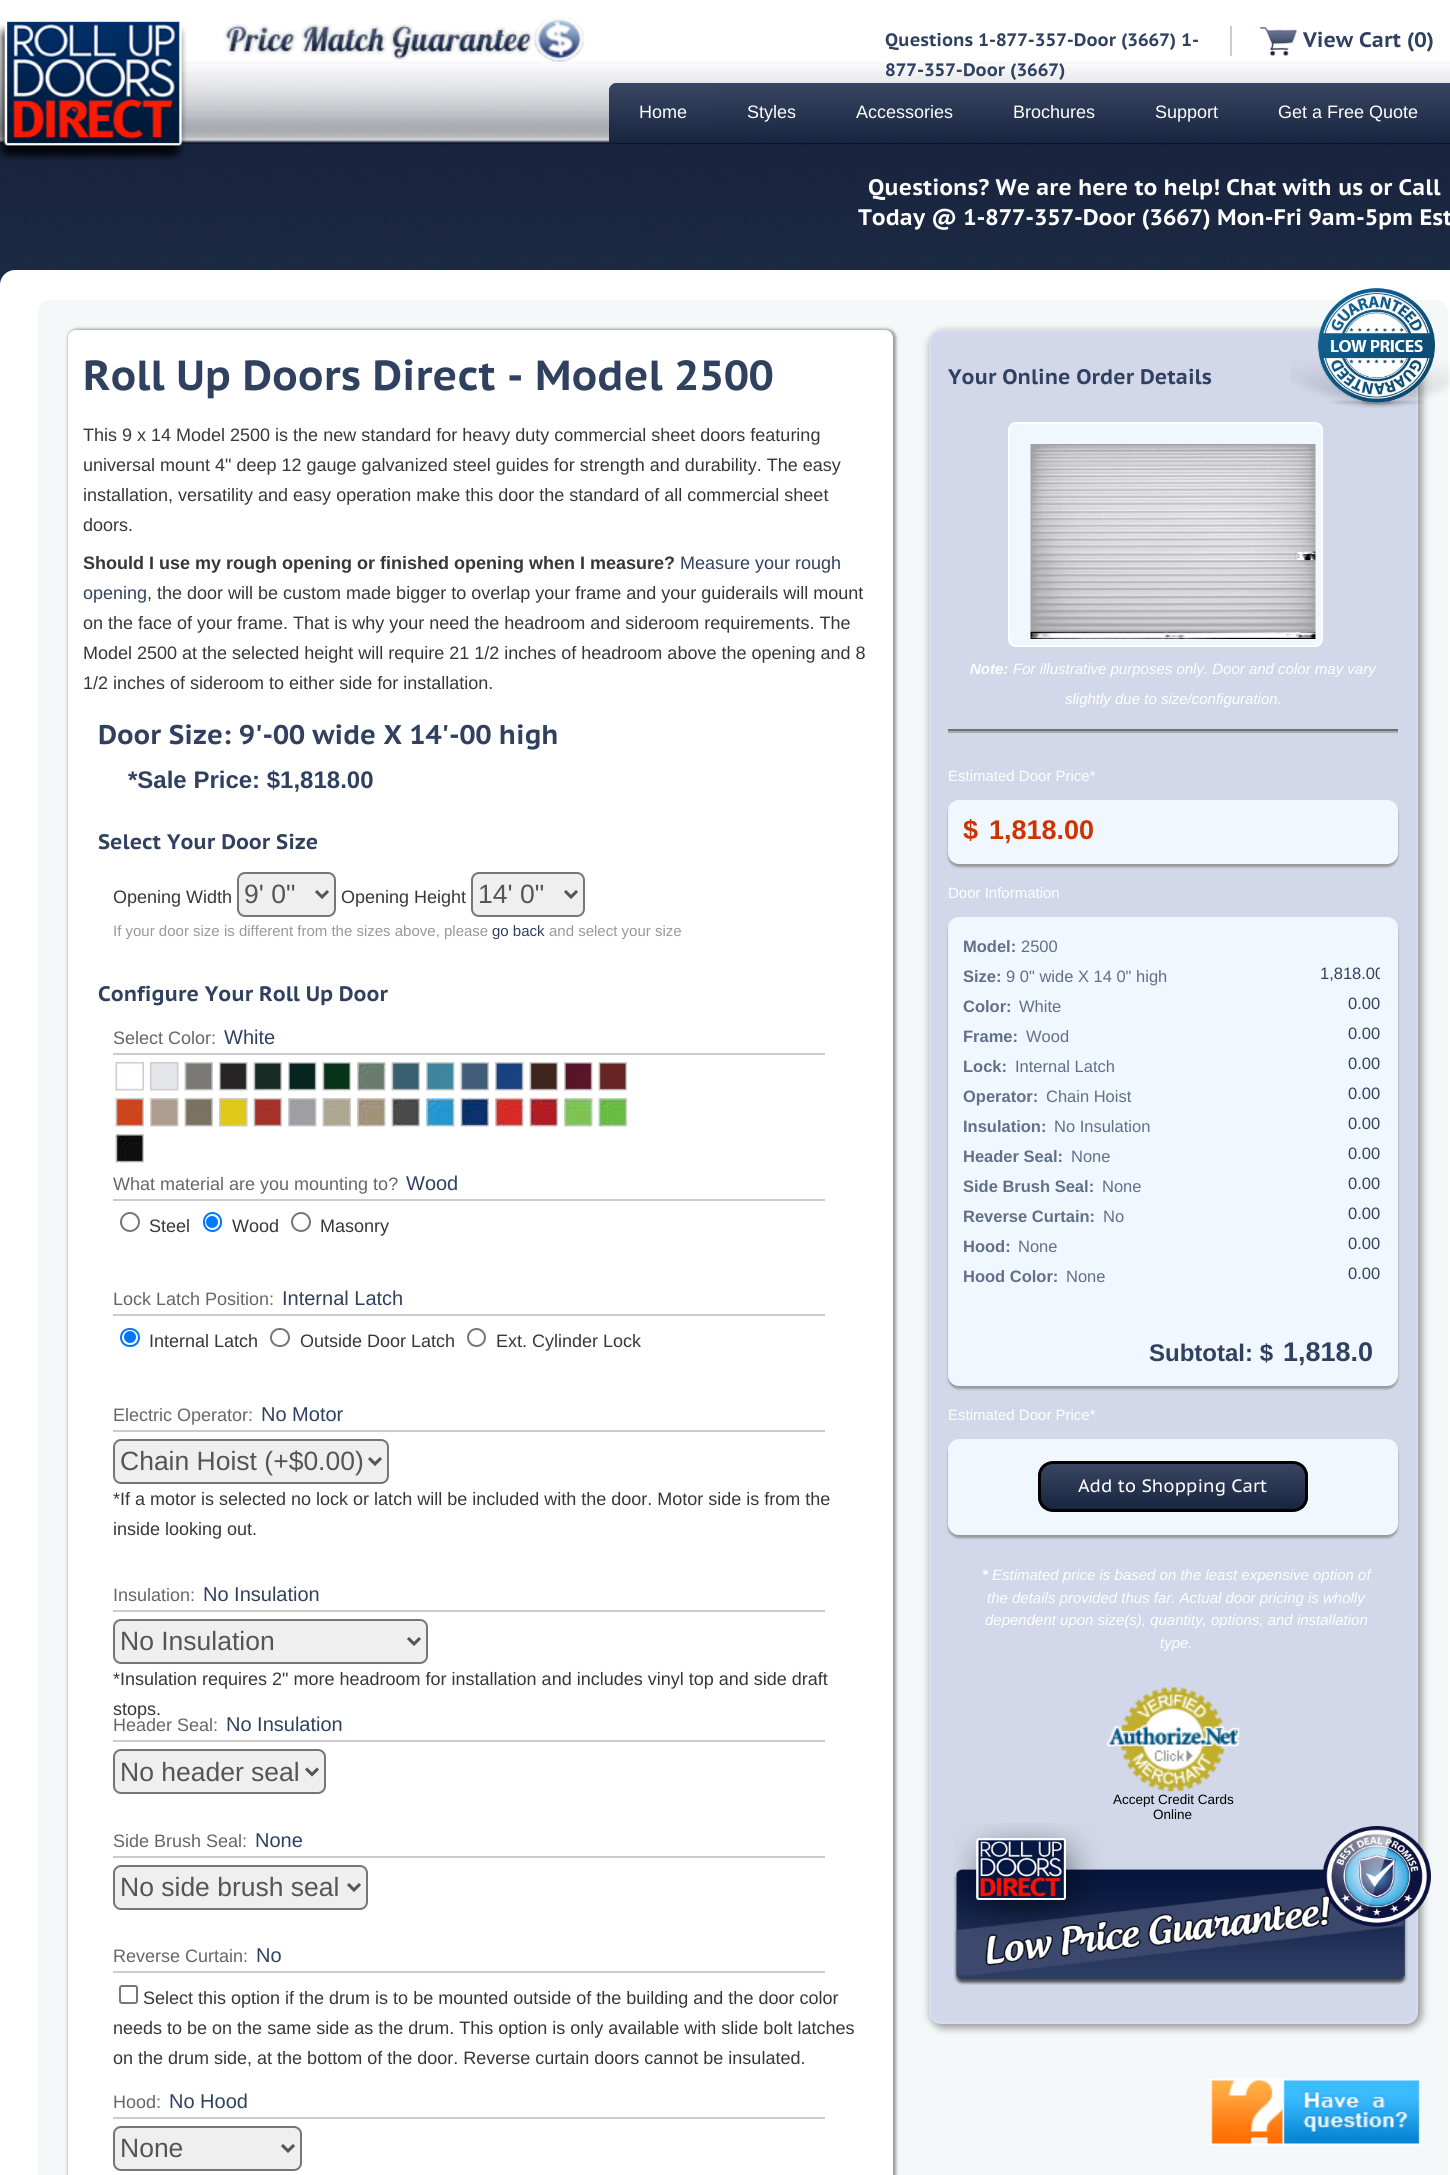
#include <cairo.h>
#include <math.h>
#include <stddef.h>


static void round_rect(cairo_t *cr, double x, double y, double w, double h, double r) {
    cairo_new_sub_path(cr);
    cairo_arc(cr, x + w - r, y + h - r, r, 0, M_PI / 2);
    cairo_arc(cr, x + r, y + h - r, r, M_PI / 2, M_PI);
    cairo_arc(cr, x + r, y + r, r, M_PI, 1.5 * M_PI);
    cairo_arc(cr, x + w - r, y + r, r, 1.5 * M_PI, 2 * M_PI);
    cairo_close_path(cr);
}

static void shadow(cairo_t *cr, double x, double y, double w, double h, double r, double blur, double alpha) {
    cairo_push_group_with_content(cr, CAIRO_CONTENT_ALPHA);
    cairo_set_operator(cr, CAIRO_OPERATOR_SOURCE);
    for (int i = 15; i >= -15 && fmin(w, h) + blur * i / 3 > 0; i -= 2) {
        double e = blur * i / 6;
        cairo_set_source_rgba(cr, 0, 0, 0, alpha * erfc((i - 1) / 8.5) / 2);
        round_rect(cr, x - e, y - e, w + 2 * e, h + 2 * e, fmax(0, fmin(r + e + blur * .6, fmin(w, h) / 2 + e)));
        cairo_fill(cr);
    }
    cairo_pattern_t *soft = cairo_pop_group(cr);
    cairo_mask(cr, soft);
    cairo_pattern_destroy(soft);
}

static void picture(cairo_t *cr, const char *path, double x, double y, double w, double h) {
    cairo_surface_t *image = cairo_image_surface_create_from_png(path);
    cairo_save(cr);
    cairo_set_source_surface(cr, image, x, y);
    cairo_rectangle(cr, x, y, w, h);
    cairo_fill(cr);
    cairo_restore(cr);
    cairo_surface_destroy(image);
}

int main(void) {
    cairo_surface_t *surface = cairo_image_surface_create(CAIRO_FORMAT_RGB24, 1450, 2175);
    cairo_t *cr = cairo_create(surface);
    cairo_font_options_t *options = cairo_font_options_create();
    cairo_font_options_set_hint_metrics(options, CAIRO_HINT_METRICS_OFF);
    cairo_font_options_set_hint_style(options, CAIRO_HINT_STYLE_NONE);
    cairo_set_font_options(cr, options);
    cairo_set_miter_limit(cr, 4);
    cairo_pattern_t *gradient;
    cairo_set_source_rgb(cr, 1, 1, 1);
    cairo_paint(cr);
    picture(cr, "img1.png", 0, 61, 1450, 224);
    picture(cr, "img2.png", 0, 21, 187, 140);
    picture(cr, "img3.png", 223, 17, 361, 45);
    cairo_select_font_face(cr, "PT Sans Caption", CAIRO_FONT_SLANT_NORMAL, CAIRO_FONT_WEIGHT_BOLD);
    cairo_set_font_size(cr, 18);
    cairo_set_source_rgb(cr, 0.188, 0.255, 0.376);
    cairo_move_to(cr, 885, 46);
    cairo_show_text(cr, "Questions 1-877-357-Door (3667) 1-");
    cairo_move_to(cr, 885, 76);
    cairo_show_text(cr, "877-357-Door (3667)");
    cairo_set_source_rgb(cr, 0.8, 0.8, 0.8);
    cairo_rectangle(cr, 1230, 26, 2, 30);
    cairo_fill(cr);
    picture(cr, "img4.png", 1260, 27, 37, 29);
    cairo_set_font_size(cr, 21);
    cairo_set_source_rgb(cr, 0.188, 0.255, 0.376);
    cairo_move_to(cr, 1303, 47);
    cairo_show_text(cr, "View Cart (0)");
    gradient = cairo_pattern_create_linear(1037, 82, 1037, 143);
    cairo_pattern_add_color_stop_rgba(gradient, 0, 0.22, 0.275, 0.388, 1);
    cairo_pattern_add_color_stop_rgba(gradient, 1, 0.09, 0.145, 0.247, 1);
    cairo_set_source(cr, gradient);
    cairo_pattern_destroy(gradient);
    cairo_new_path(cr);
    cairo_move_to(cr, 617, 83);
    cairo_line_to(cr, 1450, 83);
    cairo_curve_to(cr, 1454.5, 83, 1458, 86.5, 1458, 91);
    cairo_line_to(cr, 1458, 143);
    cairo_line_to(cr, 609, 143);
    cairo_line_to(cr, 609, 91);
    cairo_curve_to(cr, 609, 86.5, 612.5, 83, 617, 83);
    cairo_close_path(cr);
    cairo_fill(cr);
    gradient = cairo_pattern_create_linear(663, 83, 663, 143);
    cairo_pattern_add_color_stop_rgba(gradient, 0, 0.22, 0.275, 0.388, 1);
    cairo_pattern_add_color_stop_rgba(gradient, 1, 0.09, 0.145, 0.247, 1);
    cairo_set_source(cr, gradient);
    cairo_pattern_destroy(gradient);
    cairo_new_path(cr);
    cairo_move_to(cr, 617, 83);
    cairo_line_to(cr, 717, 83);
    cairo_line_to(cr, 717, 143);
    cairo_line_to(cr, 609, 143);
    cairo_line_to(cr, 609, 91);
    cairo_curve_to(cr, 609, 86.5, 612.5, 83, 617, 83);
    cairo_close_path(cr);
    cairo_fill(cr);
    cairo_select_font_face(cr, "Liberation Sans", CAIRO_FONT_SLANT_NORMAL, CAIRO_FONT_WEIGHT_NORMAL);
    cairo_set_font_size(cr, 18);
    cairo_set_source_rgb(cr, 1, 1, 1);
    cairo_move_to(cr, 639, 118);
    cairo_show_text(cr, "Home");
    cairo_move_to(cr, 747, 118);
    cairo_show_text(cr, "Styles");
    cairo_move_to(cr, 856, 118);
    cairo_show_text(cr, "Accessories");
    cairo_move_to(cr, 1013, 118);
    cairo_show_text(cr, "Brochures");
    cairo_move_to(cr, 1155, 118);
    cairo_show_text(cr, "Support");
    cairo_move_to(cr, 1278, 118);
    cairo_show_text(cr, "Get a Free Quote");
    round_rect(cr, 0, 270, 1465, 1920, 15);
    cairo_fill(cr);
    cairo_set_source_rgb(cr, 0.957, 0.969, 0.969);
    round_rect(cr, 38, 300, 1410, 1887, 12);
    cairo_fill(cr);
    picture(cr, "img5.png", 1210, 2079, 211, 66);
    cairo_select_font_face(cr, "PT Sans Caption", CAIRO_FONT_SLANT_NORMAL, CAIRO_FONT_WEIGHT_BOLD);
    cairo_set_font_size(cr, 22.5);
    cairo_set_source_rgb(cr, 1, 1, 1);
    cairo_move_to(cr, 868, 195);
    cairo_show_text(cr, "Questions? We are here to help! Chat with us or Call");
    cairo_move_to(cr, 858, 225);
    cairo_show_text(cr, "Today @ 1-877-357-Door (3667) Mon-Fri 9am-5pm Est");
    cairo_set_source_rgb(cr, 0.6, 0.6, 0.6);
    shadow(cr, 68, 329, 828, 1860, 9, 1.5, 1);
    cairo_set_source_rgb(cr, 1, 1, 1);
    round_rect(cr, 68, 330, 825, 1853, 8);
    cairo_fill(cr);
    cairo_set_font_size(cr, 42);
    cairo_set_source_rgb(cr, 0.188, 0.255, 0.376);
    cairo_move_to(cr, 83, 390);
    cairo_show_text(cr, "Roll Up Doors Direct - Model 2500");
    cairo_select_font_face(cr, "Liberation Sans", CAIRO_FONT_SLANT_NORMAL, CAIRO_FONT_WEIGHT_NORMAL);
    cairo_set_font_size(cr, 18);
    cairo_set_source_rgb(cr, 0.22, 0.216, 0.208);
    cairo_move_to(cr, 83, 441);
    cairo_show_text(cr, "This 9 x 14 Model 2500 is the new standard for heavy duty commercial sheet doors featuring");
    cairo_move_to(cr, 83, 471);
    cairo_show_text(cr, "universal mount 4\" deep 12 gauge galvanized steel guides for strength and durability. The easy");
    cairo_move_to(cr, 83, 501);
    cairo_show_text(cr, "installation, versatility and easy operation make this door the standard of all commercial sheet");
    cairo_move_to(cr, 83, 531);
    cairo_show_text(cr, "doors.");
    cairo_select_font_face(cr, "Liberation Sans", CAIRO_FONT_SLANT_NORMAL, CAIRO_FONT_WEIGHT_BOLD);
    cairo_move_to(cr, 83, 569);
    cairo_show_text(cr, "Should I use my rough opening or finished opening when I measure?");
    cairo_select_font_face(cr, "Liberation Sans", CAIRO_FONT_SLANT_NORMAL, CAIRO_FONT_WEIGHT_NORMAL);
    cairo_set_source_rgb(cr, 0.188, 0.255, 0.376);
    cairo_move_to(cr, 680, 569);
    cairo_show_text(cr, "Measure your rough");
    cairo_move_to(cr, 83, 599);
    cairo_show_text(cr, "opening");
    cairo_set_source_rgb(cr, 0.22, 0.216, 0.208);
    cairo_move_to(cr, 147, 599);
    cairo_show_text(cr, ", the door will be custom made bigger to overlap your frame and your guiderails will mount");
    cairo_move_to(cr, 83, 629);
    cairo_show_text(cr, "on the face of your frame. That is why your need the headroom and sideroom requirements. The");
    cairo_move_to(cr, 83, 659);
    cairo_show_text(cr, "Model 2500 at the selected height will require 21 1/2 inches of headroom above the opening and 8");
    cairo_move_to(cr, 83, 689);
    cairo_show_text(cr, "1/2 inches of sideroom to either side for installation.");
    cairo_select_font_face(cr, "PT Sans Caption", CAIRO_FONT_SLANT_NORMAL, CAIRO_FONT_WEIGHT_BOLD);
    cairo_set_font_size(cr, 27);
    cairo_set_source_rgb(cr, 0.188, 0.255, 0.376);
    cairo_move_to(cr, 98, 744);
    cairo_show_text(cr, "Door Size: 9'-00 wide X 14'-00 high");
    cairo_select_font_face(cr, "Liberation Sans", CAIRO_FONT_SLANT_NORMAL, CAIRO_FONT_WEIGHT_BOLD);
    cairo_set_font_size(cr, 24);
    cairo_move_to(cr, 128, 788);
    cairo_show_text(cr, "*Sale Price: $1,818.00");
    cairo_select_font_face(cr, "PT Sans Caption", CAIRO_FONT_SLANT_NORMAL, CAIRO_FONT_WEIGHT_BOLD);
    cairo_set_font_size(cr, 21);
    cairo_move_to(cr, 98, 849);
    cairo_show_text(cr, "Select Your Door Size");
    cairo_select_font_face(cr, "Liberation Sans", CAIRO_FONT_SLANT_NORMAL, CAIRO_FONT_WEIGHT_NORMAL);
    cairo_set_font_size(cr, 18);
    cairo_set_source_rgb(cr, 0.22, 0.216, 0.208);
    cairo_move_to(cr, 113, 903);
    cairo_show_text(cr, "Opening Width");
    cairo_set_source_rgb(cr, 0.937, 0.937, 0.937);
    round_rect(cr, 238, 873, 97, 43, 7);
    cairo_fill_preserve(cr);
    cairo_set_source_rgb(cr, 0.463, 0.463, 0.463);
    cairo_stroke(cr);
    cairo_new_path(cr);
    cairo_move_to(cr, 316, 891);
    cairo_line_to(cr, 322, 897);
    cairo_line_to(cr, 328, 891);
    cairo_set_source_rgb(cr, 0.333, 0.333, 0.333);
    cairo_set_line_width(cr, 3);
    cairo_stroke(cr);
    cairo_set_font_size(cr, 26.5);
    cairo_move_to(cr, 244, 903);
    cairo_show_text(cr, "9' 0\"");
    cairo_set_font_size(cr, 18);
    cairo_set_source_rgb(cr, 0.22, 0.216, 0.208);
    cairo_move_to(cr, 341, 903);
    cairo_show_text(cr, "Opening Height");
    cairo_set_source_rgb(cr, 0.937, 0.937, 0.937);
    round_rect(cr, 472, 873, 112, 43, 7);
    cairo_fill_preserve(cr);
    cairo_set_source_rgb(cr, 0.463, 0.463, 0.463);
    cairo_set_line_width(cr, 2);
    cairo_stroke(cr);
    cairo_new_path(cr);
    cairo_move_to(cr, 565, 891);
    cairo_line_to(cr, 571, 897);
    cairo_line_to(cr, 577, 891);
    cairo_set_source_rgb(cr, 0.333, 0.333, 0.333);
    cairo_set_line_width(cr, 3);
    cairo_stroke(cr);
    cairo_set_font_size(cr, 26.5);
    cairo_move_to(cr, 478, 903);
    cairo_show_text(cr, "14' 0\"");
    cairo_set_font_size(cr, 15);
    cairo_set_source_rgb(cr, 0.6, 0.6, 0.6);
    cairo_move_to(cr, 113, 936);
    cairo_show_text(cr, "If your door size is different from the sizes above, please");
    cairo_set_source_rgb(cr, 0.188, 0.255, 0.376);
    cairo_move_to(cr, 492, 936);
    cairo_show_text(cr, "go back");
    cairo_set_source_rgb(cr, 0.6, 0.6, 0.6);
    cairo_move_to(cr, 549, 936);
    cairo_show_text(cr, "and select your size");
    cairo_select_font_face(cr, "PT Sans Caption", CAIRO_FONT_SLANT_NORMAL, CAIRO_FONT_WEIGHT_BOLD);
    cairo_set_font_size(cr, 21);
    cairo_set_source_rgb(cr, 0.188, 0.255, 0.376);
    cairo_move_to(cr, 98, 1001);
    cairo_show_text(cr, "Configure Your Roll Up Door");
    cairo_set_source_rgb(cr, 0.8, 0.8, 0.8);
    cairo_rectangle(cr, 113, 1053, 712, 2);
    cairo_fill(cr);
    cairo_select_font_face(cr, "Liberation Sans", CAIRO_FONT_SLANT_NORMAL, CAIRO_FONT_WEIGHT_NORMAL);
    cairo_set_font_size(cr, 18);
    cairo_set_source_rgb(cr, 0.4, 0.4, 0.4);
    cairo_move_to(cr, 113, 1044);
    cairo_show_text(cr, "Select Color:");
    cairo_set_font_size(cr, 20);
    cairo_set_source_rgb(cr, 0.188, 0.255, 0.376);
    cairo_move_to(cr, 224, 1044);
    cairo_show_text(cr, "White");
    picture(cr, "img6.png", 115, 1062, 29, 29);
    picture(cr, "img7.png", 150, 1062, 29, 29);
    picture(cr, "img8.png", 184, 1062, 29, 29);
    picture(cr, "img9.png", 219, 1062, 29, 29);
    picture(cr, "img10.png", 253, 1062, 29, 29);
    picture(cr, "img11.png", 288, 1062, 29, 29);
    picture(cr, "img12.png", 322, 1062, 29, 29);
    picture(cr, "img13.png", 357, 1062, 29, 29);
    picture(cr, "img14.png", 391, 1062, 29, 29);
    picture(cr, "img15.png", 426, 1062, 29, 29);
    picture(cr, "img16.png", 460, 1062, 29, 29);
    picture(cr, "img17.png", 495, 1062, 29, 29);
    picture(cr, "img18.png", 529, 1062, 29, 29);
    picture(cr, "img19.png", 564, 1062, 29, 29);
    picture(cr, "img20.png", 598, 1062, 29, 29);
    picture(cr, "img21.png", 115, 1098, 29, 29);
    picture(cr, "img22.png", 150, 1098, 29, 29);
    picture(cr, "img23.png", 184, 1098, 29, 29);
    picture(cr, "img24.png", 219, 1098, 29, 29);
    picture(cr, "img25.png", 253, 1098, 29, 29);
    picture(cr, "img26.png", 288, 1098, 29, 29);
    picture(cr, "img27.png", 322, 1098, 29, 29);
    picture(cr, "img28.png", 357, 1098, 29, 29);
    picture(cr, "img29.png", 391, 1098, 29, 29);
    picture(cr, "img30.png", 426, 1098, 29, 29);
    picture(cr, "img31.png", 460, 1098, 29, 29);
    picture(cr, "img32.png", 495, 1098, 29, 29);
    picture(cr, "img33.png", 529, 1098, 29, 29);
    picture(cr, "img34.png", 564, 1098, 29, 29);
    picture(cr, "img35.png", 598, 1098, 29, 29);
    picture(cr, "img36.png", 115, 1134, 29, 29);
    cairo_set_source_rgb(cr, 0.8, 0.8, 0.8);
    cairo_rectangle(cr, 113, 1199, 712, 2);
    cairo_fill(cr);
    cairo_set_font_size(cr, 18);
    cairo_set_source_rgb(cr, 0.4, 0.4, 0.4);
    cairo_move_to(cr, 113, 1190);
    cairo_show_text(cr, "What material are you mounting to?");
    cairo_set_font_size(cr, 20);
    cairo_set_source_rgb(cr, 0.188, 0.255, 0.376);
    cairo_move_to(cr, 406, 1190);
    cairo_show_text(cr, "Wood");
    cairo_new_path(cr);
    cairo_arc(cr, 130, 1222, 9, 0, 2 * M_PI);
    cairo_set_source_rgb(cr, 0.463, 0.463, 0.463);
    cairo_set_line_width(cr, 2);
    cairo_stroke(cr);
    cairo_set_font_size(cr, 18);
    cairo_set_source_rgb(cr, 0.22, 0.216, 0.208);
    cairo_move_to(cr, 149, 1232);
    cairo_show_text(cr, "Steel");
    round_rect(cr, 204, 1213, 17, 18, 8.5);
    cairo_set_source_rgb(cr, 0, 0.459, 1);
    cairo_stroke(cr);
    cairo_arc(cr, 212, 1222, 6, 0, 2 * M_PI);
    cairo_fill(cr);
    cairo_set_source_rgb(cr, 0.22, 0.216, 0.208);
    cairo_move_to(cr, 232, 1232);
    cairo_show_text(cr, "Wood");
    cairo_new_path(cr);
    cairo_arc(cr, 301, 1222, 9, 0, 2 * M_PI);
    cairo_set_source_rgb(cr, 0.463, 0.463, 0.463);
    cairo_stroke(cr);
    cairo_set_source_rgb(cr, 0.22, 0.216, 0.208);
    cairo_move_to(cr, 320, 1232);
    cairo_show_text(cr, "Masonry");
    cairo_set_source_rgb(cr, 0.8, 0.8, 0.8);
    cairo_rectangle(cr, 113, 1314, 712, 2);
    cairo_fill(cr);
    cairo_set_source_rgb(cr, 0.4, 0.4, 0.4);
    cairo_move_to(cr, 113, 1305);
    cairo_show_text(cr, "Lock Latch Position:");
    cairo_set_font_size(cr, 20);
    cairo_set_source_rgb(cr, 0.188, 0.255, 0.376);
    cairo_move_to(cr, 282, 1305);
    cairo_show_text(cr, "Internal Latch");
    round_rect(cr, 121, 1329, 18, 17, 8.5);
    cairo_set_source_rgb(cr, 0, 0.459, 1);
    cairo_stroke(cr);
    cairo_arc(cr, 130, 1337, 6, 0, 2 * M_PI);
    cairo_fill(cr);
    cairo_set_font_size(cr, 18);
    cairo_set_source_rgb(cr, 0.22, 0.216, 0.208);
    cairo_move_to(cr, 149, 1347);
    cairo_show_text(cr, "Internal Latch");
    round_rect(cr, 271, 1329, 18, 17, 8.5);
    cairo_set_source_rgb(cr, 0.463, 0.463, 0.463);
    cairo_stroke(cr);
    cairo_set_source_rgb(cr, 0.22, 0.216, 0.208);
    cairo_move_to(cr, 300, 1347);
    cairo_show_text(cr, "Outside Door Latch");
    cairo_new_path(cr);
    cairo_arc(cr, 476.5, 1337.5, 8.5, 0, 2 * M_PI);
    cairo_set_source_rgb(cr, 0.463, 0.463, 0.463);
    cairo_stroke(cr);
    cairo_set_source_rgb(cr, 0.22, 0.216, 0.208);
    cairo_move_to(cr, 496, 1347);
    cairo_show_text(cr, "Ext. Cylinder Lock");
    cairo_set_source_rgb(cr, 0.8, 0.8, 0.8);
    cairo_rectangle(cr, 113, 1430, 712, 2);
    cairo_fill(cr);
    cairo_set_source_rgb(cr, 0.4, 0.4, 0.4);
    cairo_move_to(cr, 113, 1421);
    cairo_show_text(cr, "Electric Operator:");
    cairo_set_font_size(cr, 20);
    cairo_set_source_rgb(cr, 0.188, 0.255, 0.376);
    cairo_move_to(cr, 261, 1421);
    cairo_show_text(cr, "No Motor");
    cairo_set_source_rgb(cr, 0.937, 0.937, 0.937);
    round_rect(cr, 114, 1440, 274, 43, 7);
    cairo_fill_preserve(cr);
    cairo_set_source_rgb(cr, 0.463, 0.463, 0.463);
    cairo_stroke(cr);
    cairo_new_path(cr);
    cairo_move_to(cr, 369, 1458);
    cairo_line_to(cr, 375, 1464);
    cairo_line_to(cr, 381, 1458);
    cairo_set_source_rgb(cr, 0.333, 0.333, 0.333);
    cairo_set_line_width(cr, 3);
    cairo_stroke(cr);
    cairo_set_font_size(cr, 26.5);
    cairo_move_to(cr, 120, 1470);
    cairo_show_text(cr, "Chain Hoist (+$0.00)");
    cairo_set_font_size(cr, 18);
    cairo_set_source_rgb(cr, 0.22, 0.216, 0.208);
    cairo_move_to(cr, 113, 1505);
    cairo_show_text(cr, "*If a motor is selected no lock or latch will be included with the door. Motor side is from the");
    cairo_move_to(cr, 113, 1535);
    cairo_show_text(cr, "inside looking out.");
    cairo_set_source_rgb(cr, 0.8, 0.8, 0.8);
    cairo_rectangle(cr, 113, 1610, 712, 2);
    cairo_fill(cr);
    cairo_set_source_rgb(cr, 0.4, 0.4, 0.4);
    cairo_move_to(cr, 113, 1601);
    cairo_show_text(cr, "Insulation:");
    cairo_set_font_size(cr, 20);
    cairo_set_source_rgb(cr, 0.188, 0.255, 0.376);
    cairo_move_to(cr, 203, 1601);
    cairo_show_text(cr, "No Insulation");
    cairo_set_source_rgb(cr, 0.937, 0.937, 0.937);
    round_rect(cr, 114, 1620, 313, 43, 7);
    cairo_fill_preserve(cr);
    cairo_set_source_rgb(cr, 0.463, 0.463, 0.463);
    cairo_set_line_width(cr, 2);
    cairo_stroke(cr);
    cairo_new_path(cr);
    cairo_move_to(cr, 408, 1638);
    cairo_line_to(cr, 414, 1644);
    cairo_line_to(cr, 420, 1638);
    cairo_set_source_rgb(cr, 0.333, 0.333, 0.333);
    cairo_set_line_width(cr, 3);
    cairo_stroke(cr);
    cairo_set_font_size(cr, 26.5);
    cairo_move_to(cr, 120, 1650);
    cairo_show_text(cr, "No Insulation");
    cairo_set_font_size(cr, 18);
    cairo_set_source_rgb(cr, 0.22, 0.216, 0.208);
    cairo_move_to(cr, 113, 1685);
    cairo_show_text(cr, "*Insulation requires 2\" more headroom for installation and includes vinyl top and side draft");
    cairo_move_to(cr, 113, 1715);
    cairo_show_text(cr, "stops.");
    cairo_set_source_rgb(cr, 0.8, 0.8, 0.8);
    cairo_rectangle(cr, 113, 1740, 712, 2);
    cairo_fill(cr);
    cairo_set_source_rgb(cr, 0.4, 0.4, 0.4);
    cairo_move_to(cr, 113, 1731);
    cairo_show_text(cr, "Header Seal:");
    cairo_set_font_size(cr, 20);
    cairo_set_source_rgb(cr, 0.188, 0.255, 0.376);
    cairo_move_to(cr, 226, 1731);
    cairo_show_text(cr, "No Insulation");
    cairo_set_source_rgb(cr, 0.937, 0.937, 0.937);
    round_rect(cr, 114, 1750, 211, 43, 7);
    cairo_fill_preserve(cr);
    cairo_set_source_rgb(cr, 0.463, 0.463, 0.463);
    cairo_set_line_width(cr, 2);
    cairo_stroke(cr);
    cairo_new_path(cr);
    cairo_move_to(cr, 306, 1768.5);
    cairo_line_to(cr, 312, 1774.5);
    cairo_line_to(cr, 318, 1768.5);
    cairo_set_source_rgb(cr, 0.333, 0.333, 0.333);
    cairo_set_line_width(cr, 3);
    cairo_stroke(cr);
    cairo_set_font_size(cr, 26.5);
    cairo_move_to(cr, 120, 1781);
    cairo_show_text(cr, "No header seal");
    cairo_set_source_rgb(cr, 0.8, 0.8, 0.8);
    cairo_rectangle(cr, 113, 1856, 712, 2);
    cairo_fill(cr);
    cairo_set_font_size(cr, 18);
    cairo_set_source_rgb(cr, 0.4, 0.4, 0.4);
    cairo_move_to(cr, 113, 1847);
    cairo_show_text(cr, "Side Brush Seal:");
    cairo_set_font_size(cr, 20);
    cairo_set_source_rgb(cr, 0.188, 0.255, 0.376);
    cairo_move_to(cr, 255, 1847);
    cairo_show_text(cr, "None");
    cairo_set_source_rgb(cr, 0.937, 0.937, 0.937);
    round_rect(cr, 114, 1866, 253, 43, 7);
    cairo_fill_preserve(cr);
    cairo_set_source_rgb(cr, 0.463, 0.463, 0.463);
    cairo_set_line_width(cr, 2);
    cairo_stroke(cr);
    cairo_new_path(cr);
    cairo_move_to(cr, 348, 1884);
    cairo_line_to(cr, 354, 1890);
    cairo_line_to(cr, 360, 1884);
    cairo_set_source_rgb(cr, 0.333, 0.333, 0.333);
    cairo_set_line_width(cr, 3);
    cairo_stroke(cr);
    cairo_set_font_size(cr, 26.5);
    cairo_move_to(cr, 120, 1896);
    cairo_show_text(cr, "No side brush seal");
    cairo_set_source_rgb(cr, 0.8, 0.8, 0.8);
    cairo_rectangle(cr, 113, 1971, 712, 2);
    cairo_fill(cr);
    cairo_set_font_size(cr, 18);
    cairo_set_source_rgb(cr, 0.4, 0.4, 0.4);
    cairo_move_to(cr, 113, 1962);
    cairo_show_text(cr, "Reverse Curtain:");
    cairo_set_font_size(cr, 20);
    cairo_set_source_rgb(cr, 0.188, 0.255, 0.376);
    cairo_move_to(cr, 256, 1962);
    cairo_show_text(cr, "No");
    round_rect(cr, 120, 1986, 17, 17, 2);
    cairo_set_source_rgb(cr, 0.463, 0.463, 0.463);
    cairo_set_line_width(cr, 2);
    cairo_stroke(cr);
    cairo_set_font_size(cr, 18);
    cairo_set_source_rgb(cr, 0.22, 0.216, 0.208);
    cairo_move_to(cr, 143, 2004);
    cairo_show_text(cr, "Select this option if the drum is to be mounted outside of the building and the door color");
    cairo_move_to(cr, 113, 2034);
    cairo_show_text(cr, "needs to be on the same side as the drum. This option is only available with slide bolt latches");
    cairo_move_to(cr, 113, 2064);
    cairo_show_text(cr, "on the drum side, at the bottom of the door. Reverse curtain doors cannot be insulated.");
    cairo_set_source_rgb(cr, 0.8, 0.8, 0.8);
    cairo_rectangle(cr, 113, 2117, 712, 2);
    cairo_fill(cr);
    cairo_set_source_rgb(cr, 0.4, 0.4, 0.4);
    cairo_move_to(cr, 113, 2108);
    cairo_show_text(cr, "Hood:");
    cairo_set_font_size(cr, 20);
    cairo_set_source_rgb(cr, 0.188, 0.255, 0.376);
    cairo_move_to(cr, 169, 2108);
    cairo_show_text(cr, "No Hood");
    cairo_set_source_rgb(cr, 0.937, 0.937, 0.937);
    round_rect(cr, 114, 2127, 187, 43, 7);
    cairo_fill_preserve(cr);
    cairo_set_source_rgb(cr, 0.463, 0.463, 0.463);
    cairo_stroke(cr);
    cairo_new_path(cr);
    cairo_move_to(cr, 282, 2145);
    cairo_line_to(cr, 288, 2151);
    cairo_line_to(cr, 294, 2145);
    cairo_set_source_rgb(cr, 0.333, 0.333, 0.333);
    cairo_set_line_width(cr, 3);
    cairo_stroke(cr);
    cairo_set_font_size(cr, 26.5);
    cairo_move_to(cr, 120, 2157);
    cairo_show_text(cr, "None");
    cairo_set_source_rgb(cr, 0.6, 0.6, 0.6);
    shadow(cr, 930, 332, 492, 1696, 14, 4, 1);
    cairo_set_source_rgb(cr, 0.824, 0.847, 0.914);
    round_rect(cr, 930, 331, 487, 1692, 11);
    cairo_fill_preserve(cr);
    cairo_set_source_rgb(cr, 0.843, 0.867, 0.976);
    cairo_set_line_width(cr, 2);
    cairo_stroke(cr);
    cairo_select_font_face(cr, "PT Sans Caption", CAIRO_FONT_SLANT_NORMAL, CAIRO_FONT_WEIGHT_BOLD);
    cairo_set_font_size(cr, 21);
    cairo_set_source_rgb(cr, 0.188, 0.255, 0.376);
    cairo_move_to(cr, 948, 384);
    cairo_show_text(cr, "Your Online Order Details");
    picture(cr, "img37.png", 1290, 287, 160, 121);
    cairo_set_source_rgb(cr, 0.945, 0.965, 1);
    round_rect(cr, 1009, 423, 313, 223, 7);
    cairo_fill_preserve(cr);
    cairo_set_source_rgb(cr, 1, 1, 1);
    cairo_stroke(cr);
    picture(cr, "img38.png", 1030, 444, 286, 195);
    cairo_select_font_face(cr, "Liberation Sans", CAIRO_FONT_SLANT_ITALIC, CAIRO_FONT_WEIGHT_BOLD);
    cairo_set_font_size(cr, 15);
    cairo_move_to(cr, 970, 674);
    cairo_show_text(cr, "Note:");
    cairo_select_font_face(cr, "Liberation Sans", CAIRO_FONT_SLANT_ITALIC, CAIRO_FONT_WEIGHT_NORMAL);
    cairo_move_to(cr, 1013, 674);
    cairo_show_text(cr, "For illustrative purposes only. Door and color may vary");
    cairo_move_to(cr, 1065, 704);
    cairo_show_text(cr, "slightly due to size/configuration.");
    cairo_set_source_rgb(cr, 0.443, 0.443, 0.443);
    cairo_rectangle(cr, 948, 729, 450, 2);
    cairo_fill(cr);
    cairo_set_source_rgb(cr, 0.671, 0.671, 0.671);
    cairo_rectangle(cr, 948, 731, 450, 2);
    cairo_fill(cr);
    cairo_select_font_face(cr, "Liberation Sans", CAIRO_FONT_SLANT_NORMAL, CAIRO_FONT_WEIGHT_NORMAL);
    cairo_set_source_rgb(cr, 1, 1, 1);
    cairo_move_to(cr, 948, 781);
    cairo_show_text(cr, "Estimated Door Price*");
    cairo_set_source_rgb(cr, 0.6, 0.6, 0.6);
    shadow(cr, 948, 803, 450, 64, 11, 1, 1);
    cairo_set_source_rgb(cr, 0.945, 0.965, 1);
    round_rect(cr, 948, 800, 450, 64, 11);
    cairo_fill(cr);
    cairo_select_font_face(cr, "Liberation Sans", CAIRO_FONT_SLANT_NORMAL, CAIRO_FONT_WEIGHT_BOLD);
    cairo_set_font_size(cr, 27);
    cairo_set_source_rgb(cr, 0.8, 0.2, 0);
    cairo_move_to(cr, 963, 839);
    cairo_show_text(cr, "$");
    cairo_move_to(cr, 989, 839);
    cairo_show_text(cr, "1,818.00");
    cairo_select_font_face(cr, "Liberation Sans", CAIRO_FONT_SLANT_NORMAL, CAIRO_FONT_WEIGHT_NORMAL);
    cairo_set_font_size(cr, 15);
    cairo_set_source_rgb(cr, 1, 1, 1);
    cairo_move_to(cr, 948, 898);
    cairo_show_text(cr, "Door Information");
    cairo_set_source_rgb(cr, 0.6, 0.6, 0.6);
    shadow(cr, 948, 920, 450, 469, 11, 1, 1);
    cairo_set_source_rgb(cr, 0.945, 0.965, 1);
    round_rect(cr, 948, 917, 450, 469, 11);
    cairo_fill(cr);
    cairo_select_font_face(cr, "Liberation Sans", CAIRO_FONT_SLANT_NORMAL, CAIRO_FONT_WEIGHT_BOLD);
    cairo_set_font_size(cr, 16.5);
    cairo_set_source_rgb(cr, 0.38, 0.435, 0.541);
    cairo_move_to(cr, 963, 952);
    cairo_show_text(cr, "Model:");
    cairo_select_font_face(cr, "Liberation Sans", CAIRO_FONT_SLANT_NORMAL, CAIRO_FONT_WEIGHT_NORMAL);
    cairo_move_to(cr, 1021, 952);
    cairo_show_text(cr, "2500");
    cairo_select_font_face(cr, "Liberation Sans", CAIRO_FONT_SLANT_NORMAL, CAIRO_FONT_WEIGHT_BOLD);
    cairo_move_to(cr, 963, 982);
    cairo_show_text(cr, "Size:");
    cairo_select_font_face(cr, "Liberation Sans", CAIRO_FONT_SLANT_NORMAL, CAIRO_FONT_WEIGHT_NORMAL);
    cairo_move_to(cr, 1006, 982);
    cairo_show_text(cr, "9 0\" wide X 14 0\" high");
    cairo_save(cr);
    cairo_rectangle(cr, 1320, 965, 60, 18);
    cairo_clip(cr);
    cairo_set_source_rgb(cr, 0.188, 0.255, 0.376);
    cairo_move_to(cr, 1320, 979);
    cairo_show_text(cr, "1,818.00");
    cairo_restore(cr);
    cairo_select_font_face(cr, "Liberation Sans", CAIRO_FONT_SLANT_NORMAL, CAIRO_FONT_WEIGHT_BOLD);
    cairo_move_to(cr, 963, 1012);
    cairo_show_text(cr, "Color:");
    cairo_select_font_face(cr, "Liberation Sans", CAIRO_FONT_SLANT_NORMAL, CAIRO_FONT_WEIGHT_NORMAL);
    cairo_move_to(cr, 1019, 1012);
    cairo_show_text(cr, "White");
    cairo_set_source_rgb(cr, 0.188, 0.255, 0.376);
    cairo_move_to(cr, 1348, 1009);
    cairo_show_text(cr, "0.00");
    cairo_select_font_face(cr, "Liberation Sans", CAIRO_FONT_SLANT_NORMAL, CAIRO_FONT_WEIGHT_BOLD);
    cairo_set_source_rgb(cr, 0.38, 0.435, 0.541);
    cairo_move_to(cr, 963, 1042);
    cairo_show_text(cr, "Frame:");
    cairo_select_font_face(cr, "Liberation Sans", CAIRO_FONT_SLANT_NORMAL, CAIRO_FONT_WEIGHT_NORMAL);
    cairo_move_to(cr, 1026, 1042);
    cairo_show_text(cr, "Wood");
    cairo_set_source_rgb(cr, 0.188, 0.255, 0.376);
    cairo_move_to(cr, 1348, 1039);
    cairo_show_text(cr, "0.00");
    cairo_select_font_face(cr, "Liberation Sans", CAIRO_FONT_SLANT_NORMAL, CAIRO_FONT_WEIGHT_BOLD);
    cairo_set_source_rgb(cr, 0.38, 0.435, 0.541);
    cairo_move_to(cr, 963, 1072);
    cairo_show_text(cr, "Lock:");
    cairo_select_font_face(cr, "Liberation Sans", CAIRO_FONT_SLANT_NORMAL, CAIRO_FONT_WEIGHT_NORMAL);
    cairo_move_to(cr, 1015, 1072);
    cairo_show_text(cr, "Internal Latch");
    cairo_set_source_rgb(cr, 0.188, 0.255, 0.376);
    cairo_move_to(cr, 1348, 1069);
    cairo_show_text(cr, "0.00");
    cairo_select_font_face(cr, "Liberation Sans", CAIRO_FONT_SLANT_NORMAL, CAIRO_FONT_WEIGHT_BOLD);
    cairo_set_source_rgb(cr, 0.38, 0.435, 0.541);
    cairo_move_to(cr, 963, 1102);
    cairo_show_text(cr, "Operator:");
    cairo_select_font_face(cr, "Liberation Sans", CAIRO_FONT_SLANT_NORMAL, CAIRO_FONT_WEIGHT_NORMAL);
    cairo_move_to(cr, 1046, 1102);
    cairo_show_text(cr, "Chain Hoist");
    cairo_set_source_rgb(cr, 0.188, 0.255, 0.376);
    cairo_move_to(cr, 1348, 1099);
    cairo_show_text(cr, "0.00");
    cairo_select_font_face(cr, "Liberation Sans", CAIRO_FONT_SLANT_NORMAL, CAIRO_FONT_WEIGHT_BOLD);
    cairo_set_source_rgb(cr, 0.38, 0.435, 0.541);
    cairo_move_to(cr, 963, 1132);
    cairo_show_text(cr, "Insulation:");
    cairo_select_font_face(cr, "Liberation Sans", CAIRO_FONT_SLANT_NORMAL, CAIRO_FONT_WEIGHT_NORMAL);
    cairo_move_to(cr, 1054, 1132);
    cairo_show_text(cr, "No Insulation");
    cairo_set_source_rgb(cr, 0.188, 0.255, 0.376);
    cairo_move_to(cr, 1348, 1129);
    cairo_show_text(cr, "0.00");
    cairo_select_font_face(cr, "Liberation Sans", CAIRO_FONT_SLANT_NORMAL, CAIRO_FONT_WEIGHT_BOLD);
    cairo_set_source_rgb(cr, 0.38, 0.435, 0.541);
    cairo_move_to(cr, 963, 1162);
    cairo_show_text(cr, "Header Seal:");
    cairo_select_font_face(cr, "Liberation Sans", CAIRO_FONT_SLANT_NORMAL, CAIRO_FONT_WEIGHT_NORMAL);
    cairo_move_to(cr, 1071, 1162);
    cairo_show_text(cr, "None");
    cairo_set_source_rgb(cr, 0.188, 0.255, 0.376);
    cairo_move_to(cr, 1348, 1159);
    cairo_show_text(cr, "0.00");
    cairo_select_font_face(cr, "Liberation Sans", CAIRO_FONT_SLANT_NORMAL, CAIRO_FONT_WEIGHT_BOLD);
    cairo_set_source_rgb(cr, 0.38, 0.435, 0.541);
    cairo_move_to(cr, 963, 1192);
    cairo_show_text(cr, "Side Brush Seal:");
    cairo_select_font_face(cr, "Liberation Sans", CAIRO_FONT_SLANT_NORMAL, CAIRO_FONT_WEIGHT_NORMAL);
    cairo_move_to(cr, 1102, 1192);
    cairo_show_text(cr, "None");
    cairo_set_source_rgb(cr, 0.188, 0.255, 0.376);
    cairo_move_to(cr, 1348, 1189);
    cairo_show_text(cr, "0.00");
    cairo_select_font_face(cr, "Liberation Sans", CAIRO_FONT_SLANT_NORMAL, CAIRO_FONT_WEIGHT_BOLD);
    cairo_set_source_rgb(cr, 0.38, 0.435, 0.541);
    cairo_move_to(cr, 963, 1222);
    cairo_show_text(cr, "Reverse Curtain:");
    cairo_select_font_face(cr, "Liberation Sans", CAIRO_FONT_SLANT_NORMAL, CAIRO_FONT_WEIGHT_NORMAL);
    cairo_move_to(cr, 1103, 1222);
    cairo_show_text(cr, "No");
    cairo_set_source_rgb(cr, 0.188, 0.255, 0.376);
    cairo_move_to(cr, 1348, 1219);
    cairo_show_text(cr, "0.00");
    cairo_select_font_face(cr, "Liberation Sans", CAIRO_FONT_SLANT_NORMAL, CAIRO_FONT_WEIGHT_BOLD);
    cairo_set_source_rgb(cr, 0.38, 0.435, 0.541);
    cairo_move_to(cr, 963, 1252);
    cairo_show_text(cr, "Hood:");
    cairo_select_font_face(cr, "Liberation Sans", CAIRO_FONT_SLANT_NORMAL, CAIRO_FONT_WEIGHT_NORMAL);
    cairo_move_to(cr, 1018, 1252);
    cairo_show_text(cr, "None");
    cairo_set_source_rgb(cr, 0.188, 0.255, 0.376);
    cairo_move_to(cr, 1348, 1249);
    cairo_show_text(cr, "0.00");
    cairo_select_font_face(cr, "Liberation Sans", CAIRO_FONT_SLANT_NORMAL, CAIRO_FONT_WEIGHT_BOLD);
    cairo_set_source_rgb(cr, 0.38, 0.435, 0.541);
    cairo_move_to(cr, 963, 1282);
    cairo_show_text(cr, "Hood Color:");
    cairo_select_font_face(cr, "Liberation Sans", CAIRO_FONT_SLANT_NORMAL, CAIRO_FONT_WEIGHT_NORMAL);
    cairo_move_to(cr, 1066, 1282);
    cairo_show_text(cr, "None");
    cairo_set_source_rgb(cr, 0.188, 0.255, 0.376);
    cairo_move_to(cr, 1348, 1279);
    cairo_show_text(cr, "0.00");
    cairo_select_font_face(cr, "Liberation Sans", CAIRO_FONT_SLANT_NORMAL, CAIRO_FONT_WEIGHT_BOLD);
    cairo_set_font_size(cr, 24);
    cairo_move_to(cr, 1149, 1361);
    cairo_show_text(cr, "Subtotal: $");
    cairo_set_font_size(cr, 27);
    cairo_move_to(cr, 1283, 1361);
    cairo_show_text(cr, "1,818.0");
    cairo_select_font_face(cr, "Liberation Sans", CAIRO_FONT_SLANT_NORMAL, CAIRO_FONT_WEIGHT_NORMAL);
    cairo_set_font_size(cr, 15);
    cairo_set_source_rgb(cr, 1, 1, 1);
    cairo_move_to(cr, 948, 1420);
    cairo_show_text(cr, "Estimated Door Price*");
    cairo_set_source_rgb(cr, 0.6, 0.6, 0.6);
    shadow(cr, 948, 1442, 450, 96, 11, 1, 1);
    cairo_set_source_rgb(cr, 0.945, 0.965, 1);
    round_rect(cr, 948, 1439, 450, 96, 11);
    cairo_fill(cr);
    cairo_save(cr);
    round_rect(cr, 1038, 1461, 270, 51, 15);
    cairo_clip(cr);
    gradient = cairo_pattern_create_linear(1173, 1464, 1173, 1509);
    cairo_pattern_add_color_stop_rgba(gradient, 0, 0.22, 0.275, 0.388, 1);
    cairo_pattern_add_color_stop_rgba(gradient, 1, 0.09, 0.145, 0.247, 1);
    cairo_set_source(cr, gradient);
    cairo_pattern_destroy(gradient);
    cairo_rectangle(cr, 1038, 1464, 270, 45);
    cairo_fill(cr);
    cairo_restore(cr);
    round_rect(cr, 1039.5, 1462.5, 267, 48, 13.5);
    cairo_set_source_rgb(cr, 0, 0, 0);
    cairo_set_line_width(cr, 3);
    cairo_stroke(cr);
    cairo_select_font_face(cr, "PT Sans Caption", CAIRO_FONT_SLANT_NORMAL, CAIRO_FONT_WEIGHT_NORMAL);
    cairo_set_font_size(cr, 18);
    cairo_set_source_rgb(cr, 1, 1, 1);
    cairo_move_to(cr, 1078, 1492);
    cairo_show_text(cr, "Add to Shopping Cart");
    cairo_select_font_face(cr, "Liberation Sans", CAIRO_FONT_SLANT_ITALIC, CAIRO_FONT_WEIGHT_BOLD);
    cairo_set_font_size(cr, 15);
    cairo_move_to(cr, 982, 1580);
    cairo_show_text(cr, "*");
    cairo_select_font_face(cr, "Liberation Sans", CAIRO_FONT_SLANT_ITALIC, CAIRO_FONT_WEIGHT_NORMAL);
    cairo_move_to(cr, 992, 1580);
    cairo_show_text(cr, "Estimated price is based on the least expensive option of");
    cairo_move_to(cr, 987, 1603);
    cairo_show_text(cr, "the details provided thus far. Actual door pricing is wholly");
    cairo_move_to(cr, 985, 1625);
    cairo_show_text(cr, "dependent upon size(s), quantity, options, and installation");
    cairo_move_to(cr, 1160, 1648);
    cairo_show_text(cr, "type.");
    picture(cr, "img39.png", 1106, 1687, 134, 105);
    cairo_select_font_face(cr, "Liberation Sans", CAIRO_FONT_SLANT_NORMAL, CAIRO_FONT_WEIGHT_NORMAL);
    cairo_set_font_size(cr, 13.5);
    cairo_set_source_rgb(cr, 0, 0, 0);
    cairo_move_to(cr, 1113, 1804);
    cairo_show_text(cr, "Accept Credit Cards");
    cairo_move_to(cr, 1153, 1819);
    cairo_show_text(cr, "Online");
    picture(cr, "img40.png", 953, 1823, 478, 162);
    cairo_surface_write_to_png(surface, "page.png");
    cairo_font_options_destroy(options);
    cairo_destroy(cr);
    cairo_surface_destroy(surface);
    return 0;
}
